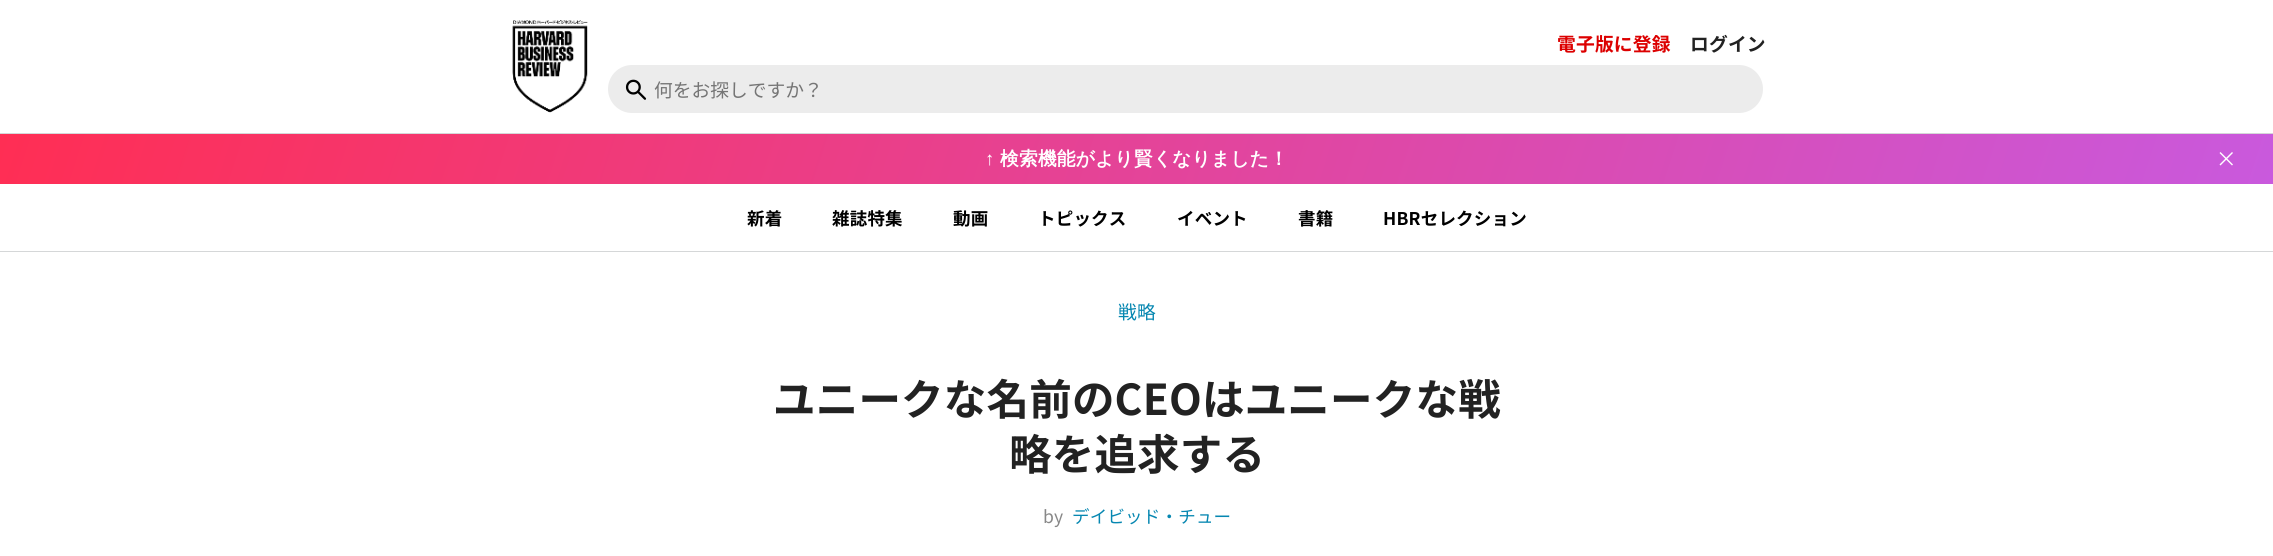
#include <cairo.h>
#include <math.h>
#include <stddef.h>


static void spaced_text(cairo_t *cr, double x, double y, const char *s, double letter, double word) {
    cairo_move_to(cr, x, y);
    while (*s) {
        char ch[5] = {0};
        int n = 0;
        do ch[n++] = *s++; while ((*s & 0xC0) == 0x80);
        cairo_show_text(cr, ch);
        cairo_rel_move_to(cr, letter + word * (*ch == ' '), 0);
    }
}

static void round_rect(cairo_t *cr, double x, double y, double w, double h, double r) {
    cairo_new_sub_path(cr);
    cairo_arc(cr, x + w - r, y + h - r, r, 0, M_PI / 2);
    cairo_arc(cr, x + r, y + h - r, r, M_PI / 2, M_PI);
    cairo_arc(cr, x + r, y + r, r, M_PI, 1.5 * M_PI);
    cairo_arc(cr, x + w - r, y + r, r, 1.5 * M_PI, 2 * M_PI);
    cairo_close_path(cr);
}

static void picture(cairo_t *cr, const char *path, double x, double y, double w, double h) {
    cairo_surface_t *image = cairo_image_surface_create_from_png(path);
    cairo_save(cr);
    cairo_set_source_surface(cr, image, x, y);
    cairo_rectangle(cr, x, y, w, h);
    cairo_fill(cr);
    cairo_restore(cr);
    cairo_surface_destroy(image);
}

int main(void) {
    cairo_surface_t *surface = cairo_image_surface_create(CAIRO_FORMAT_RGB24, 2273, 556);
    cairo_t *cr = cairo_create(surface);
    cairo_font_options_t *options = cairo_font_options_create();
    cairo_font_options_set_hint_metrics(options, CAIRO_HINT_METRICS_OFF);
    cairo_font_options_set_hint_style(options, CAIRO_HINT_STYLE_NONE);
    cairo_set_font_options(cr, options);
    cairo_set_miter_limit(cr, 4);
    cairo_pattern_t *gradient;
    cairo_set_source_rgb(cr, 1, 1, 1);
    cairo_paint(cr);
    cairo_set_source_rgb(cr, 0.835, 0.843, 0.847);
    cairo_rectangle(cr, 0, 133, 2273, 1);
    cairo_fill(cr);
    picture(cr, "img1.png", 512, 20, 76, 93);
    cairo_select_font_face(cr, "Noto Sans JP", CAIRO_FONT_SLANT_NORMAL, CAIRO_FONT_WEIGHT_BOLD);
    cairo_set_font_size(cr, 18.75);
    cairo_set_source_rgb(cr, 0.863, 0, 0);
    spaced_text(cr, 1557, 51, "電子版に登録", 0.2, 0);
    cairo_set_source_rgb(cr, 0.133, 0.133, 0.133);
    spaced_text(cr, 1690, 51, "ログイン", 0.2, 0);
    cairo_set_source_rgb(cr, 0.922, 0.922, 0.922);
    round_rect(cr, 608, 65, 1155, 48, 24);
    cairo_fill(cr);
    picture(cr, "img2.png", 625, 79, 22, 21);
    cairo_select_font_face(cr, "Noto Sans JP", CAIRO_FONT_SLANT_NORMAL, CAIRO_FONT_WEIGHT_NORMAL);
    cairo_set_source_rgb(cr, 0.459, 0.459, 0.459);
    cairo_move_to(cr, 654, 97);
    cairo_show_text(cr, "何をお探しですか？");
    gradient = cairo_pattern_create_linear(101, -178, 2173, 495);
    cairo_pattern_add_color_stop_rgba(gradient, 0, 1, 0.18, 0.329, 1);
    cairo_pattern_add_color_stop_rgba(gradient, 1, 0.788, 0.349, 0.867, 1);
    cairo_set_source(cr, gradient);
    cairo_pattern_destroy(gradient);
    cairo_rectangle(cr, 0, 134, 2273, 50);
    cairo_fill(cr);
    cairo_select_font_face(cr, "Liberation Sans", CAIRO_FONT_SLANT_NORMAL, CAIRO_FONT_WEIGHT_BOLD);
    cairo_set_source_rgb(cr, 1, 1, 1);
    spaced_text(cr, 985, 165, "↑", 0.2, 0);
    cairo_select_font_face(cr, "WenQuanYi Zen Hei", CAIRO_FONT_SLANT_NORMAL, CAIRO_FONT_WEIGHT_BOLD);
    spaced_text(cr, 1000, 165, "検索機能がより賢くなりました！", 0.2, 0);
    cairo_new_path(cr);
    cairo_move_to(cr, 2232, 152);
    cairo_line_to(cr, 2233, 153);
    cairo_line_to(cr, 2220.5, 165.5);
    cairo_line_to(cr, 2219.5, 164.5);
    cairo_close_path(cr);
    cairo_fill(cr);
    cairo_new_path(cr);
    cairo_move_to(cr, 2219.5, 153);
    cairo_line_to(cr, 2220.5, 152);
    cairo_line_to(cr, 2233, 164.5);
    cairo_line_to(cr, 2232, 165.5);
    cairo_close_path(cr);
    cairo_fill(cr);
    cairo_set_source_rgb(cr, 0.835, 0.843, 0.847);
    cairo_rectangle(cr, 0, 251, 2273, 1);
    cairo_fill(cr);
    cairo_select_font_face(cr, "Noto Sans JP", CAIRO_FONT_SLANT_NORMAL, CAIRO_FONT_WEIGHT_BOLD);
    cairo_set_font_size(cr, 17.5);
    cairo_set_source_rgb(cr, 0, 0, 0);
    spaced_text(cr, 747, 225, "新着", 0.2, 0);
    spaced_text(cr, 832, 225, "雑誌特集", 0.2, 0);
    spaced_text(cr, 953, 225, "動画", 0.2, 0);
    spaced_text(cr, 1038, 225, "トピックス", 0.2, 0);
    spaced_text(cr, 1177, 225, "イベント", 0.2, 0);
    spaced_text(cr, 1298, 225, "書籍", 0.2, 0);
    spaced_text(cr, 1383, 225, "HBRセレクション", 0.2, 0);
    cairo_select_font_face(cr, "Noto Sans JP", CAIRO_FONT_SLANT_NORMAL, CAIRO_FONT_WEIGHT_NORMAL);
    cairo_set_font_size(cr, 18.75);
    cairo_set_source_rgb(cr, 0.027, 0.529, 0.694);
    spaced_text(cr, 1118, 319, "戦略", 0.2, 0);
    cairo_select_font_face(cr, "Noto Sans JP", CAIRO_FONT_SLANT_NORMAL, CAIRO_FONT_WEIGHT_BOLD);
    cairo_set_font_size(cr, 42.5);
    cairo_set_source_rgb(cr, 0.133, 0.133, 0.133);
    spaced_text(cr, 773, 415, "ユニークな名前のCEOはユニークな戦", 0.2, 0);
    spaced_text(cr, 1009, 470, "略を追求する", 0.2, 0);
    cairo_select_font_face(cr, "Noto Sans JP", CAIRO_FONT_SLANT_NORMAL, CAIRO_FONT_WEIGHT_NORMAL);
    cairo_set_font_size(cr, 17.5);
    cairo_set_source_rgb(cr, 0.533, 0.533, 0.533);
    spaced_text(cr, 1043, 523, "by", 0.2, 0);
    cairo_set_source_rgb(cr, 0.027, 0.529, 0.694);
    spaced_text(cr, 1072, 523, "デイビッド・チュー", 0.2, 0);
    cairo_surface_write_to_png(surface, "page.png");
    cairo_font_options_destroy(options);
    cairo_destroy(cr);
    cairo_surface_destroy(surface);
    return 0;
}
